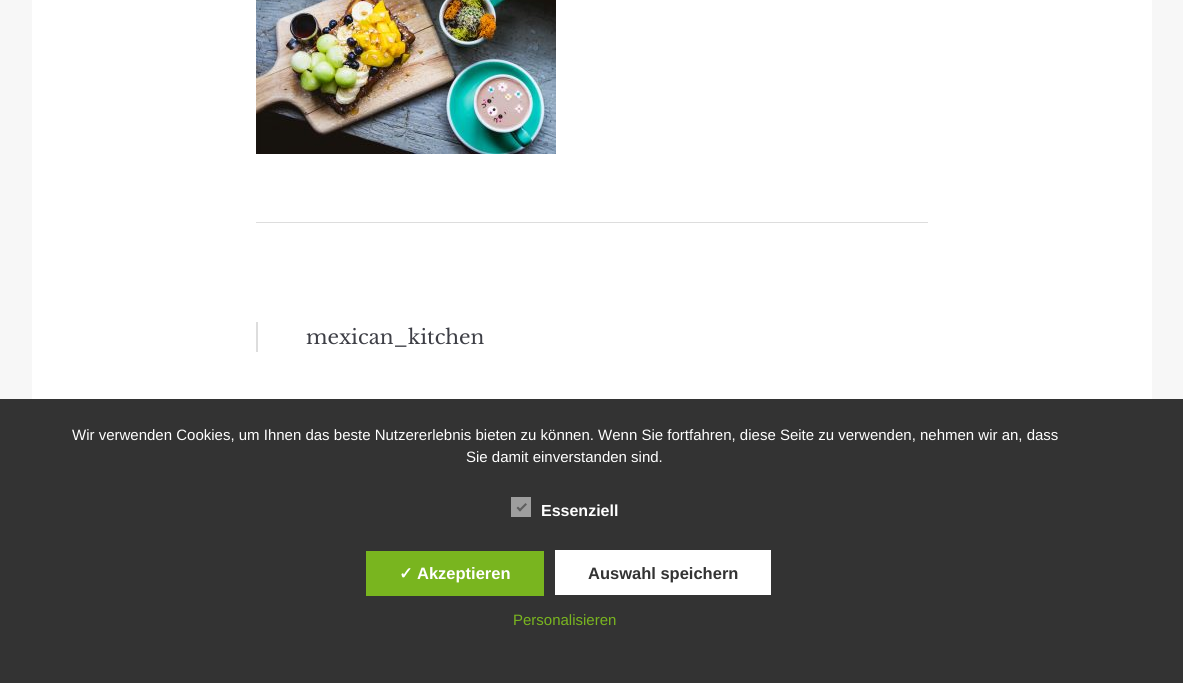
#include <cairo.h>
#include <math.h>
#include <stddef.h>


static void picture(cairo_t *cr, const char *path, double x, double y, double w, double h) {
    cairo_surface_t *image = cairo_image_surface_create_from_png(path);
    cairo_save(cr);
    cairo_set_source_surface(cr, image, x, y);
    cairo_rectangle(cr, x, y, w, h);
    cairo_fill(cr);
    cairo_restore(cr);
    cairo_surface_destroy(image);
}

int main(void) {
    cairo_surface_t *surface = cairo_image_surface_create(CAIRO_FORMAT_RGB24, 1183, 683);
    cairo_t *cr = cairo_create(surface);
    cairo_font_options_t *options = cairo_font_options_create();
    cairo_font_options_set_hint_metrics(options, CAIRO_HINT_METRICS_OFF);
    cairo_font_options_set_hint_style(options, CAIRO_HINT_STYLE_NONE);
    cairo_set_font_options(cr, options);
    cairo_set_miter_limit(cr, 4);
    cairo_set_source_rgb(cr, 0.965, 0.965, 0.965);
    cairo_paint(cr);
    cairo_set_source_rgb(cr, 1, 1, 1);
    cairo_rectangle(cr, 32, 0, 1120, 399);
    cairo_fill(cr);
    picture(cr, "img1.png", 256, 0, 300, 154);
    cairo_set_source_rgb(cr, 0.867, 0.867, 0.867);
    cairo_rectangle(cr, 256, 222, 672, 1);
    cairo_fill(cr);
    cairo_rectangle(cr, 256, 322, 2, 30);
    cairo_fill(cr);
    cairo_select_font_face(cr, "Libre Baskerville", CAIRO_FONT_SLANT_NORMAL, CAIRO_FONT_WEIGHT_NORMAL);
    cairo_set_font_size(cr, 20);
    cairo_set_source_rgb(cr, 0.243, 0.247, 0.275);
    cairo_move_to(cr, 306, 344);
    cairo_show_text(cr, "mexican_kitchen");
    cairo_set_source_rgb(cr, 0.2, 0.2, 0.2);
    cairo_rectangle(cr, 0, 399, 1183, 284);
    cairo_fill(cr);
    cairo_select_font_face(cr, "Liberation Sans", CAIRO_FONT_SLANT_NORMAL, CAIRO_FONT_WEIGHT_NORMAL);
    cairo_set_font_size(cr, 15);
    cairo_set_source_rgb(cr, 1, 1, 1);
    cairo_move_to(cr, 72, 440);
    cairo_show_text(cr, "Wir verwenden Cookies, um Ihnen das beste Nutzererlebnis bieten zu können. Wenn Sie fortfahren, diese Seite zu verwenden, nehmen wir an, dass");
    cairo_move_to(cr, 466, 462);
    cairo_show_text(cr, "Sie damit einverstanden sind.");
    cairo_set_source_rgb(cr, 0.62, 0.62, 0.62);
    cairo_rectangle(cr, 511, 497, 20, 20);
    cairo_fill(cr);
    cairo_set_source_rgb(cr, 0.369, 0.369, 0.369);
    cairo_new_path(cr);
    cairo_move_to(cr, 525.5, 503);
    cairo_line_to(cr, 527, 504.5);
    cairo_line_to(cr, 520, 511.5);
    cairo_line_to(cr, 518.5, 510);
    cairo_close_path(cr);
    cairo_fill(cr);
    cairo_new_path(cr);
    cairo_move_to(cr, 518, 506.5);
    cairo_line_to(cr, 521.5, 510);
    cairo_line_to(cr, 520, 511.5);
    cairo_line_to(cr, 516.5, 508);
    cairo_close_path(cr);
    cairo_fill(cr);
    cairo_select_font_face(cr, "Liberation Sans", CAIRO_FONT_SLANT_NORMAL, CAIRO_FONT_WEIGHT_BOLD);
    cairo_set_font_size(cr, 16);
    cairo_set_source_rgb(cr, 1, 1, 1);
    cairo_move_to(cr, 541, 516);
    cairo_show_text(cr, "Essenziell");
    cairo_set_source_rgb(cr, 0.475, 0.71, 0.122);
    cairo_rectangle(cr, 366, 551, 178, 45);
    cairo_fill(cr);
    cairo_select_font_face(cr, "DejaVu Sans", CAIRO_FONT_SLANT_NORMAL, CAIRO_FONT_WEIGHT_BOLD);
    cairo_set_font_size(cr, 16.5);
    cairo_set_source_rgb(cr, 1, 1, 1);
    cairo_move_to(cr, 399, 579);
    cairo_show_text(cr, "✓");
    cairo_select_font_face(cr, "Liberation Sans", CAIRO_FONT_SLANT_NORMAL, CAIRO_FONT_WEIGHT_BOLD);
    cairo_move_to(cr, 417, 579);
    cairo_show_text(cr, "Akzeptieren");
    cairo_rectangle(cr, 555, 550, 216, 45);
    cairo_fill(cr);
    cairo_set_source_rgb(cr, 0.2, 0.2, 0.2);
    cairo_move_to(cr, 588, 579);
    cairo_show_text(cr, "Auswahl speichern");
    cairo_select_font_face(cr, "Liberation Sans", CAIRO_FONT_SLANT_NORMAL, CAIRO_FONT_WEIGHT_NORMAL);
    cairo_set_font_size(cr, 15);
    cairo_set_source_rgb(cr, 0.475, 0.71, 0.122);
    cairo_move_to(cr, 513, 625);
    cairo_show_text(cr, "Personalisieren");
    cairo_surface_write_to_png(surface, "page.png");
    cairo_font_options_destroy(options);
    cairo_destroy(cr);
    cairo_surface_destroy(surface);
    return 0;
}
